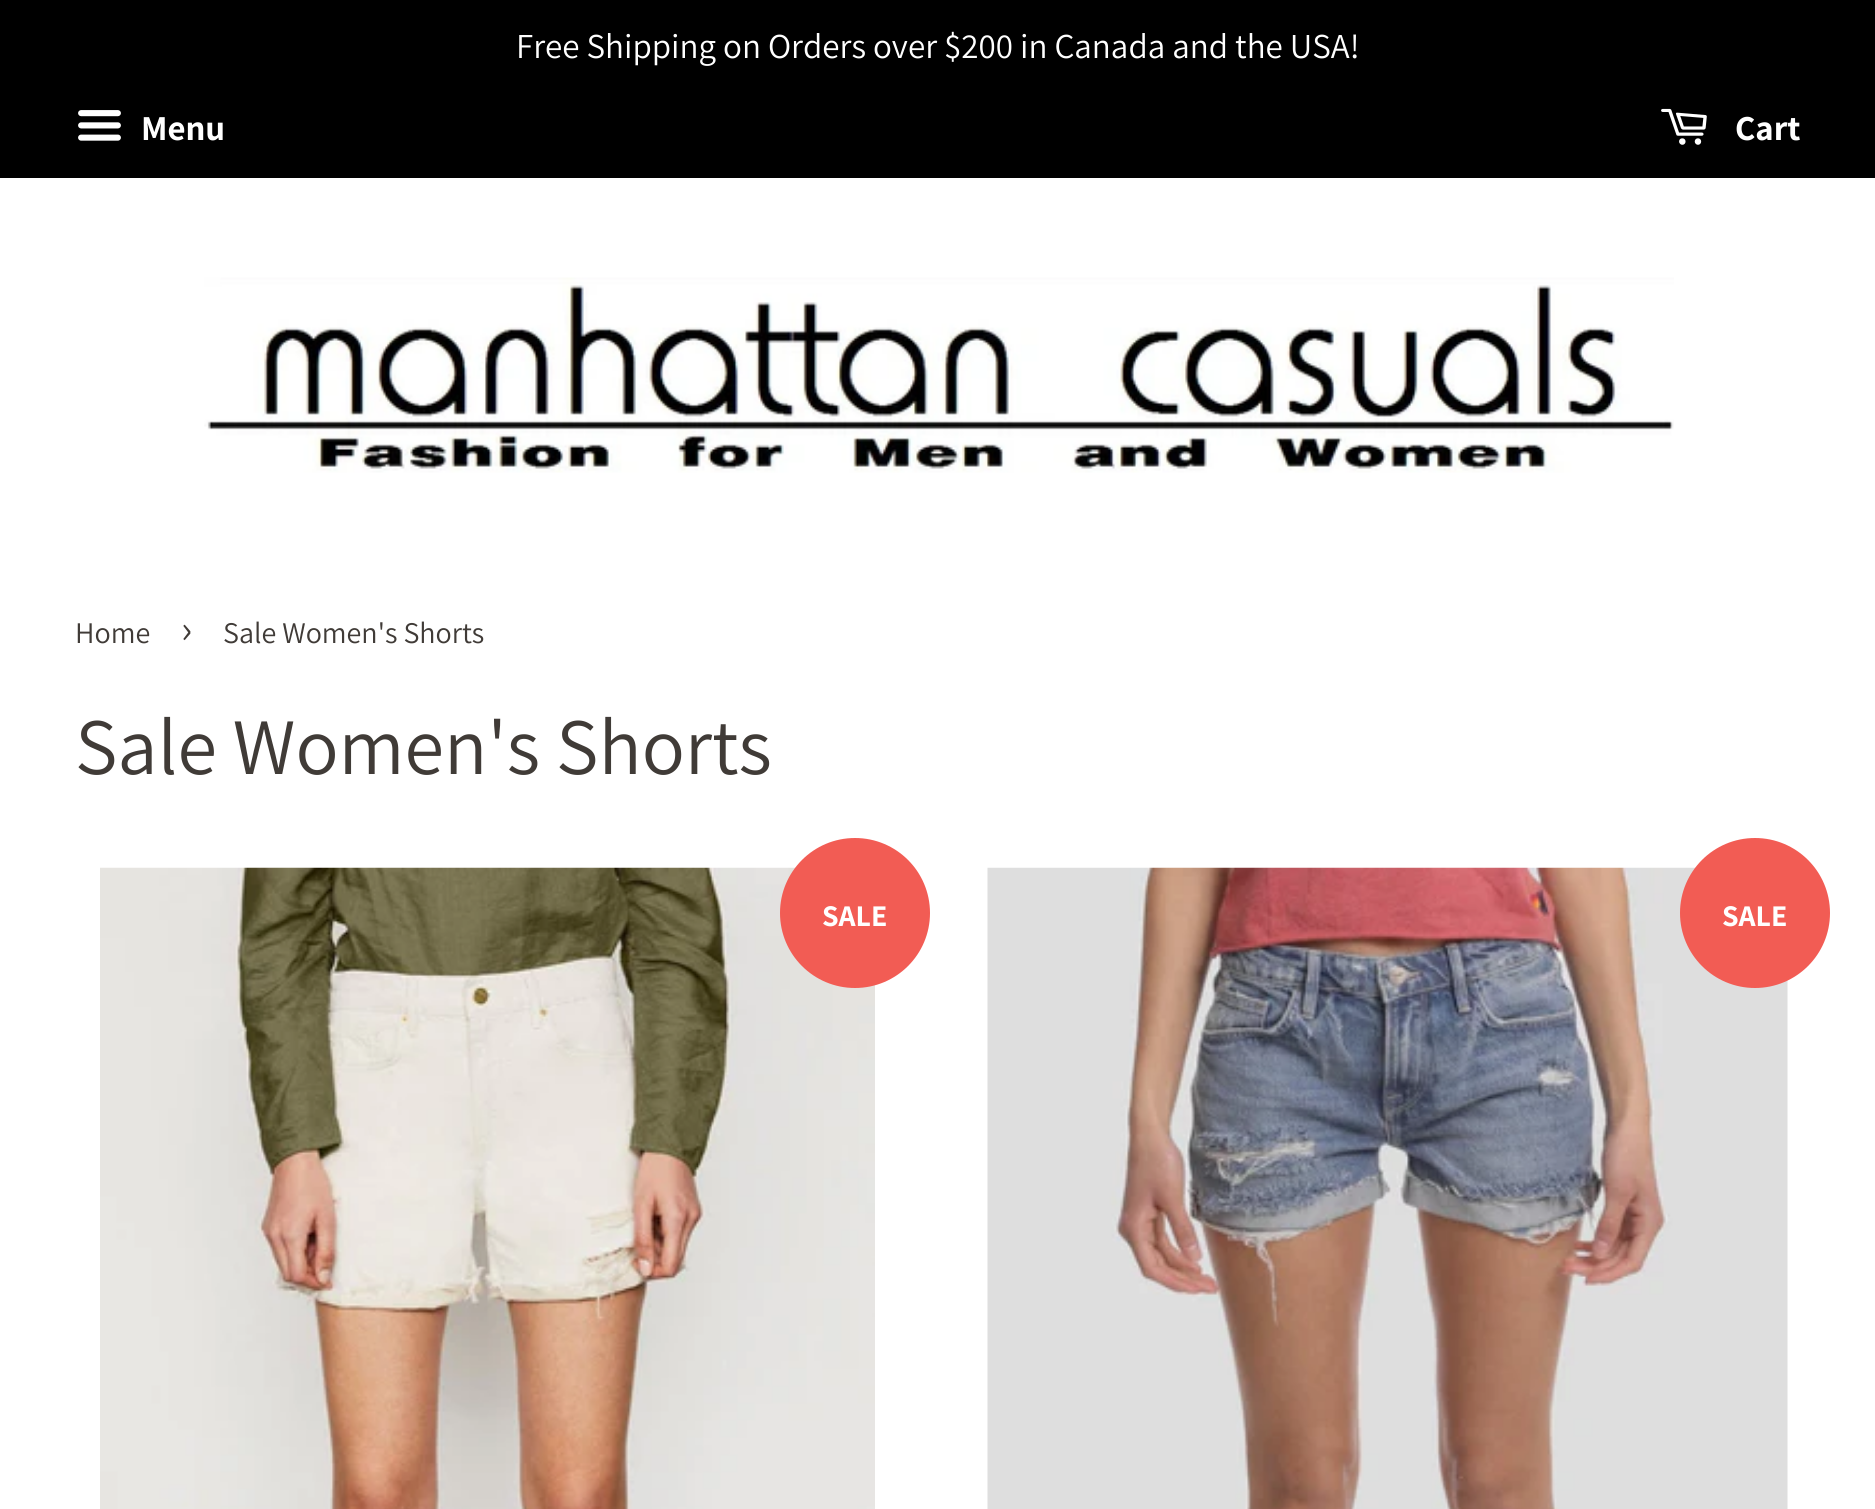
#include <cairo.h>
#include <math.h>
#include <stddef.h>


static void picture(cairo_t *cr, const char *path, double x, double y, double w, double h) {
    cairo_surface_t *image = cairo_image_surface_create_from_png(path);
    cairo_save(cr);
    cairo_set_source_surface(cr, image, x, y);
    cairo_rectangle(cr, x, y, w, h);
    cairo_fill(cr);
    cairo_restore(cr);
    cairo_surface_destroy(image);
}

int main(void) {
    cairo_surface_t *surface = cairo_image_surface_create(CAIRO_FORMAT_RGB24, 1875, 1509);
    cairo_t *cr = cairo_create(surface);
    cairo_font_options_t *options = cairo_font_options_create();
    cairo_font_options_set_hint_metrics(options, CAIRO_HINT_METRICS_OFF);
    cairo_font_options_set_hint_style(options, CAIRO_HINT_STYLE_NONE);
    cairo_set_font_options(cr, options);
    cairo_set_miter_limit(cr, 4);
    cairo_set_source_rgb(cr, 1, 1, 1);
    cairo_paint(cr);
    cairo_set_source_rgb(cr, 0, 0, 0);
    cairo_rectangle(cr, 0, 0, 1875, 178);
    cairo_fill(cr);
    cairo_select_font_face(cr, "Assistant", CAIRO_FONT_SLANT_NORMAL, CAIRO_FONT_WEIGHT_NORMAL);
    cairo_set_font_size(cr, 35);
    cairo_set_source_rgb(cr, 1, 1, 1);
    cairo_move_to(cr, 516, 58);
    cairo_show_text(cr, "Free Shipping on Orders over $200 in Canada and the USA!");
    picture(cr, "img1.png", 78, 110, 43, 31);
    cairo_select_font_face(cr, "Assistant", CAIRO_FONT_SLANT_NORMAL, CAIRO_FONT_WEIGHT_BOLD);
    cairo_move_to(cr, 141, 140);
    cairo_show_text(cr, "Menu");
    picture(cr, "img2.png", 1661, 108, 46, 37);
    cairo_move_to(cr, 1735, 140);
    cairo_show_text(cr, "Cart");
    picture(cr, "img3.png", 204, 277, 1470, 196);
    cairo_select_font_face(cr, "Assistant", CAIRO_FONT_SLANT_NORMAL, CAIRO_FONT_WEIGHT_NORMAL);
    cairo_set_font_size(cr, 30);
    cairo_set_source_rgb(cr, 0.251, 0.231, 0.216);
    cairo_move_to(cr, 75, 643);
    cairo_show_text(cr, "Home");
    cairo_set_font_size(cr, 42);
    cairo_move_to(cr, 181, 643);
    cairo_show_text(cr, "›");
    cairo_set_font_size(cr, 30);
    cairo_move_to(cr, 223, 643);
    cairo_show_text(cr, "Sale Women's Shorts");
    cairo_set_font_size(cr, 80);
    cairo_move_to(cr, 75, 774);
    cairo_show_text(cr, "Sale Women's Shorts");
    picture(cr, "img4.png", 100, 867, 775, 642);
    cairo_set_source_rgb(cr, 0.949, 0.361, 0.329);
    cairo_arc(cr, 855, 913, 75, 0, 2 * M_PI);
    cairo_fill(cr);
    cairo_select_font_face(cr, "Assistant", CAIRO_FONT_SLANT_NORMAL, CAIRO_FONT_WEIGHT_BOLD);
    cairo_set_font_size(cr, 30);
    cairo_set_source_rgb(cr, 1, 1, 1);
    cairo_move_to(cr, 822, 926);
    cairo_show_text(cr, "SALE");
    picture(cr, "img5.png", 987, 867, 801, 642);
    cairo_set_source_rgb(cr, 0.949, 0.361, 0.329);
    cairo_arc(cr, 1755, 913, 75, 0, 2 * M_PI);
    cairo_fill(cr);
    cairo_set_source_rgb(cr, 1, 1, 1);
    cairo_move_to(cr, 1722, 926);
    cairo_show_text(cr, "SALE");
    cairo_surface_write_to_png(surface, "page.png");
    cairo_font_options_destroy(options);
    cairo_destroy(cr);
    cairo_surface_destroy(surface);
    return 0;
}
